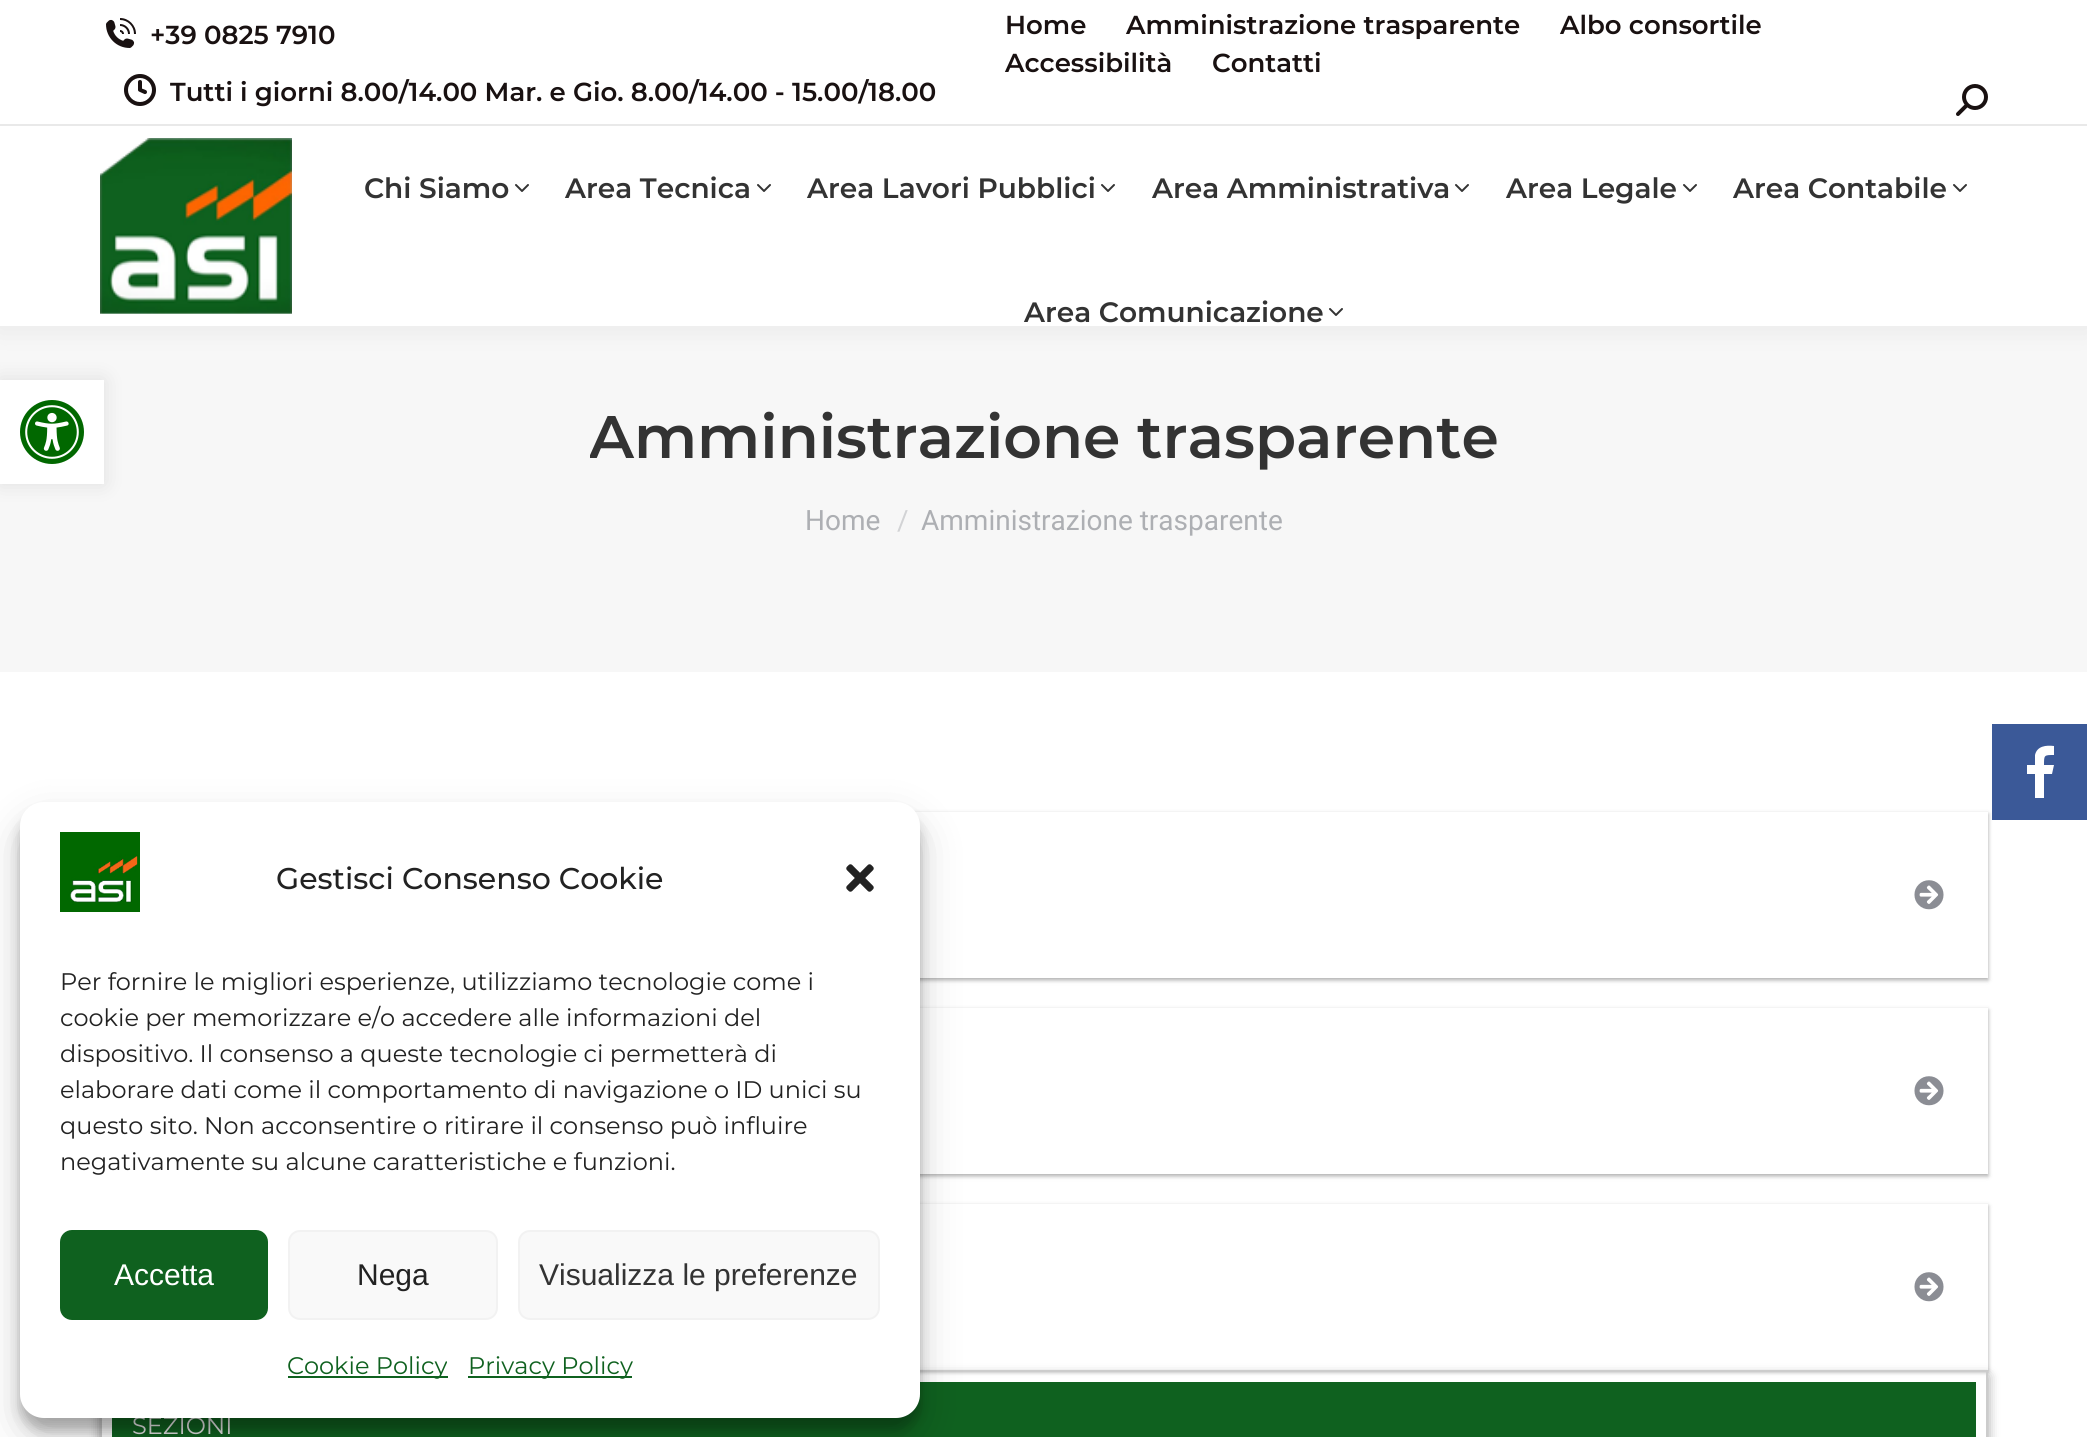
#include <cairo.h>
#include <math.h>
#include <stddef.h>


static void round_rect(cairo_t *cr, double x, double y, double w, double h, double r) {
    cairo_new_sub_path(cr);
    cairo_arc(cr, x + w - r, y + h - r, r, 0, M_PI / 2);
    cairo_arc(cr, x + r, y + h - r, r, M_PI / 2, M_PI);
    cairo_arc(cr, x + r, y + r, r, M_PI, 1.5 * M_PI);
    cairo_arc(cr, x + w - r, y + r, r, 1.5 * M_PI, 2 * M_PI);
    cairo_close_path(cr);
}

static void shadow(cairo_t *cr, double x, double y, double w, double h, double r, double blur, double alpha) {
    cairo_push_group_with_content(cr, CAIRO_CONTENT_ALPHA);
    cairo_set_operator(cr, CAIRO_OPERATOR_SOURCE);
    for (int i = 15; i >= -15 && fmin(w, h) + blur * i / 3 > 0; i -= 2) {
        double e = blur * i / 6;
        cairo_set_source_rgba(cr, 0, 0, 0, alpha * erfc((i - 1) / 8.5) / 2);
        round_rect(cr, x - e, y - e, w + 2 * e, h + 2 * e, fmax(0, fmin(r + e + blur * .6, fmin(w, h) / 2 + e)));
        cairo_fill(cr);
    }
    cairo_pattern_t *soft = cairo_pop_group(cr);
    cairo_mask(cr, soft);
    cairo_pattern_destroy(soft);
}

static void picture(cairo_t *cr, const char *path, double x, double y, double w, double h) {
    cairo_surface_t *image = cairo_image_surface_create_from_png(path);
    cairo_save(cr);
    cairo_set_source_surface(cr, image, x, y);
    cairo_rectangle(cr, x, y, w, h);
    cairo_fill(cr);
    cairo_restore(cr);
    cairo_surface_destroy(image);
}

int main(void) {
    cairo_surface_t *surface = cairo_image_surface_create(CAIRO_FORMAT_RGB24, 2087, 1437);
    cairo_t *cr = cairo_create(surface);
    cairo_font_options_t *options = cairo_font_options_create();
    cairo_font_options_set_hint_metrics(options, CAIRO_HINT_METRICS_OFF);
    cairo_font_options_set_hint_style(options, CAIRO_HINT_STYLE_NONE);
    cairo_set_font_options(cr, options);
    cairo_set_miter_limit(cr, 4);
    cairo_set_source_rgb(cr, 1, 1, 1);
    cairo_paint(cr);
    cairo_set_source_rgb(cr, 0.965, 0.965, 0.965);
    cairo_rectangle(cr, 0, 326, 2087, 346);
    cairo_fill(cr);
    cairo_set_source_rgb(cr, 0, 0, 0);
    shadow(cr, 0, 380, 104, 104, 0, 10, 0.1);
    cairo_set_source_rgb(cr, 1, 1, 1);
    cairo_rectangle(cr, 0, 380, 104, 104);
    cairo_fill(cr);
    picture(cr, "img1.png", 20, 400, 64, 64);
    cairo_set_source_rgb(cr, 0, 0, 0);
    shadow(cr, -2, -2, 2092, 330, 0, 15, 0.07);
    cairo_set_source_rgb(cr, 1, 1, 1);
    cairo_rectangle(cr, 0, 0, 2087, 326);
    cairo_fill(cr);
    picture(cr, "img2.png", 106, 18, 30, 30);
    cairo_select_font_face(cr, "Montserrat SemiBold", CAIRO_FONT_SLANT_NORMAL, CAIRO_FONT_WEIGHT_NORMAL);
    cairo_set_font_size(cr, 26);
    cairo_set_source_rgb(cr, 0.098, 0.067, 0.067);
    cairo_move_to(cr, 150, 44);
    cairo_show_text(cr, "+39 0825 7910");
    picture(cr, "img3.png", 124, 74, 32, 32);
    cairo_move_to(cr, 170, 101);
    cairo_show_text(cr, "Tutti i giorni 8.00/14.00 Mar. e Gio. 8.00/14.00 - 15.00/18.00");
    cairo_move_to(cr, 1005, 34);
    cairo_show_text(cr, "Home");
    cairo_move_to(cr, 1126, 34);
    cairo_show_text(cr, "Amministrazione trasparente");
    cairo_move_to(cr, 1560, 34);
    cairo_show_text(cr, "Albo consortile");
    cairo_move_to(cr, 1005, 72);
    cairo_show_text(cr, "Accessibilità");
    cairo_move_to(cr, 1212, 72);
    cairo_show_text(cr, "Contatti");
    picture(cr, "img4.png", 1956, 84, 32, 32);
    cairo_set_source_rgb(cr, 0.914, 0.914, 0.914);
    cairo_rectangle(cr, 0, 124, 2087, 2);
    cairo_fill(cr);
    picture(cr, "img5.png", 100, 138, 192, 176);
    cairo_set_font_size(cr, 28);
    cairo_set_source_rgb(cr, 0.2, 0.2, 0.2);
    cairo_move_to(cr, 364, 198);
    cairo_show_text(cr, "Chi Siamo");
    picture(cr, "img6.png", 515, 184, 14, 8);
    cairo_move_to(cr, 565, 198);
    cairo_show_text(cr, "Area Tecnica");
    picture(cr, "img6.png", 757, 184, 14, 8);
    cairo_move_to(cr, 807, 198);
    cairo_show_text(cr, "Area Lavori Pubblici");
    picture(cr, "img6.png", 1101, 184, 14, 8);
    cairo_move_to(cr, 1152, 198);
    cairo_show_text(cr, "Area Amministrativa");
    picture(cr, "img6.png", 1455, 184, 14, 8);
    cairo_move_to(cr, 1506, 198);
    cairo_show_text(cr, "Area Legale");
    picture(cr, "img6.png", 1683, 184, 14, 8);
    cairo_move_to(cr, 1733, 198);
    cairo_show_text(cr, "Area Contabile");
    picture(cr, "img6.png", 1953, 184, 14, 8);
    cairo_move_to(cr, 1024, 322);
    cairo_show_text(cr, "Area Comunicazione");
    picture(cr, "img6.png", 1329, 308, 14, 8);
    cairo_save(cr);
    cairo_rectangle(cr, 590, 400, 908, 76);
    cairo_clip(cr);
    cairo_set_font_size(cr, 60);
    cairo_move_to(cr, 589, 458);
    cairo_show_text(cr, "Amministrazione trasparente");
    cairo_restore(cr);
    cairo_select_font_face(cr, "Roboto", CAIRO_FONT_SLANT_NORMAL, CAIRO_FONT_WEIGHT_NORMAL);
    cairo_set_source_rgb(cr, 0.678, 0.686, 0.702);
    cairo_move_to(cr, 805, 530);
    cairo_show_text(cr, "Home");
    cairo_set_source_rgb(cr, 0.824, 0.827, 0.835);
    cairo_move_to(cr, 897, 530);
    cairo_show_text(cr, "/");
    cairo_set_source_rgb(cr, 0.678, 0.686, 0.702);
    cairo_move_to(cr, 921, 530);
    cairo_show_text(cr, "Amministrazione trasparente");
    cairo_save(cr);
    cairo_set_fill_rule(cr, CAIRO_FILL_RULE_EVEN_ODD);
    cairo_new_path(cr);
    cairo_move_to(cr, 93, 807);
    cairo_line_to(cr, 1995, 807);
    cairo_line_to(cr, 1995, 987);
    cairo_line_to(cr, 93, 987);
    cairo_close_path(cr);
    cairo_move_to(cr, 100, 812);
    cairo_line_to(cr, 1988, 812);
    cairo_line_to(cr, 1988, 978);
    cairo_line_to(cr, 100, 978);
    cairo_close_path(cr);
    cairo_clip(cr);
    cairo_set_source_rgb(cr, 0, 0, 0);
    shadow(cr, 100, 814, 1888, 166, 0, 2, 0.24);
    cairo_restore(cr);
    cairo_save(cr);
    cairo_set_fill_rule(cr, CAIRO_FILL_RULE_EVEN_ODD);
    cairo_new_path(cr);
    cairo_move_to(cr, 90, 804);
    cairo_line_to(cr, 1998, 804);
    cairo_line_to(cr, 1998, 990);
    cairo_line_to(cr, 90, 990);
    cairo_close_path(cr);
    cairo_move_to(cr, 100, 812);
    cairo_line_to(cr, 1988, 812);
    cairo_line_to(cr, 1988, 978);
    cairo_line_to(cr, 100, 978);
    cairo_close_path(cr);
    cairo_clip(cr);
    cairo_set_source_rgb(cr, 0, 0, 0);
    shadow(cr, 100, 814, 1888, 166, 0, 3, 0.12);
    cairo_restore(cr);
    picture(cr, "img7.png", 1914, 880, 30, 30);
    cairo_save(cr);
    cairo_set_fill_rule(cr, CAIRO_FILL_RULE_EVEN_ODD);
    cairo_new_path(cr);
    cairo_move_to(cr, 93, 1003);
    cairo_line_to(cr, 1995, 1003);
    cairo_line_to(cr, 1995, 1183);
    cairo_line_to(cr, 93, 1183);
    cairo_close_path(cr);
    cairo_move_to(cr, 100, 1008);
    cairo_line_to(cr, 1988, 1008);
    cairo_line_to(cr, 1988, 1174);
    cairo_line_to(cr, 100, 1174);
    cairo_close_path(cr);
    cairo_clip(cr);
    cairo_set_source_rgb(cr, 0, 0, 0);
    shadow(cr, 100, 1010, 1888, 166, 0, 2, 0.24);
    cairo_restore(cr);
    cairo_save(cr);
    cairo_set_fill_rule(cr, CAIRO_FILL_RULE_EVEN_ODD);
    cairo_new_path(cr);
    cairo_move_to(cr, 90, 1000);
    cairo_line_to(cr, 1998, 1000);
    cairo_line_to(cr, 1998, 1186);
    cairo_line_to(cr, 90, 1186);
    cairo_close_path(cr);
    cairo_move_to(cr, 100, 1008);
    cairo_line_to(cr, 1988, 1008);
    cairo_line_to(cr, 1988, 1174);
    cairo_line_to(cr, 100, 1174);
    cairo_close_path(cr);
    cairo_clip(cr);
    cairo_set_source_rgb(cr, 0, 0, 0);
    shadow(cr, 100, 1010, 1888, 166, 0, 3, 0.12);
    cairo_restore(cr);
    picture(cr, "img7.png", 1914, 1076, 30, 30);
    cairo_save(cr);
    cairo_set_fill_rule(cr, CAIRO_FILL_RULE_EVEN_ODD);
    cairo_new_path(cr);
    cairo_move_to(cr, 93, 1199);
    cairo_line_to(cr, 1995, 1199);
    cairo_line_to(cr, 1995, 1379);
    cairo_line_to(cr, 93, 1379);
    cairo_close_path(cr);
    cairo_move_to(cr, 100, 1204);
    cairo_line_to(cr, 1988, 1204);
    cairo_line_to(cr, 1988, 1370);
    cairo_line_to(cr, 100, 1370);
    cairo_close_path(cr);
    cairo_clip(cr);
    cairo_set_source_rgb(cr, 0, 0, 0);
    shadow(cr, 100, 1206, 1888, 166, 0, 2, 0.24);
    cairo_restore(cr);
    cairo_save(cr);
    cairo_set_fill_rule(cr, CAIRO_FILL_RULE_EVEN_ODD);
    cairo_new_path(cr);
    cairo_move_to(cr, 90, 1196);
    cairo_line_to(cr, 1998, 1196);
    cairo_line_to(cr, 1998, 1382);
    cairo_line_to(cr, 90, 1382);
    cairo_close_path(cr);
    cairo_move_to(cr, 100, 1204);
    cairo_line_to(cr, 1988, 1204);
    cairo_line_to(cr, 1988, 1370);
    cairo_line_to(cr, 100, 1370);
    cairo_close_path(cr);
    cairo_clip(cr);
    cairo_set_source_rgb(cr, 0, 0, 0);
    shadow(cr, 100, 1206, 1888, 166, 0, 3, 0.12);
    cairo_restore(cr);
    picture(cr, "img7.png", 1914, 1272, 30, 30);
    cairo_save(cr);
    cairo_set_fill_rule(cr, CAIRO_FILL_RULE_EVEN_ODD);
    cairo_new_path(cr);
    cairo_move_to(cr, 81, 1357);
    cairo_line_to(cr, 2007, 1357);
    cairo_line_to(cr, 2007, 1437);
    cairo_line_to(cr, 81, 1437);
    cairo_close_path(cr);
    cairo_move_to(cr, 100, 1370);
    cairo_line_to(cr, 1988, 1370);
    cairo_line_to(cr, 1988, 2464);
    cairo_line_to(cr, 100, 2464);
    cairo_close_path(cr);
    cairo_clip(cr);
    cairo_set_source_rgb(cr, 0, 0, 0);
    shadow(cr, 100, 1376, 1888, 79, 0, 6, 0.23);
    shadow(cr, 100, 1376, 1888, 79, 0, 6, 0.16);
    cairo_restore(cr);
    cairo_rectangle(cr, 101, 1371, 1886, 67);
    cairo_set_source_rgb(cr, 0.8, 0.8, 0.8);
    cairo_stroke(cr);
    cairo_set_source_rgb(cr, 0.059, 0.38, 0.122);
    cairo_rectangle(cr, 112, 1382, 1864, 55);
    cairo_fill(cr);
    cairo_select_font_face(cr, "Montserrat", CAIRO_FONT_SLANT_NORMAL, CAIRO_FONT_WEIGHT_NORMAL);
    cairo_set_font_size(cr, 24);
    cairo_set_source_rgb(cr, 0.906, 0.906, 0.906);
    cairo_move_to(cr, 132, 1434);
    cairo_show_text(cr, "SEZIONI");
    cairo_set_source_rgb(cr, 0.231, 0.349, 0.596);
    cairo_rectangle(cr, 1992, 724, 95, 96);
    cairo_fill(cr);
    cairo_set_source_rgb(cr, 1, 1, 1);
    cairo_new_path(cr);
    cairo_move_to(cr, 2054, 746);
    cairo_line_to(cr, 2054, 755);
    cairo_curve_to(cr, 2044, 755, 2044, 755, 2044, 765);
    cairo_line_to(cr, 2054, 765);
    cairo_line_to(cr, 2052, 774);
    cairo_line_to(cr, 2044, 774);
    cairo_line_to(cr, 2044, 798);
    cairo_line_to(cr, 2035, 798);
    cairo_line_to(cr, 2035, 774);
    cairo_line_to(cr, 2027, 774);
    cairo_line_to(cr, 2027, 765);
    cairo_line_to(cr, 2035, 765);
    cairo_line_to(cr, 2035, 755);
    cairo_curve_to(cr, 2037, 746, 2046, 745, 2054, 746);
    cairo_close_path(cr);
    cairo_fill(cr);
    cairo_set_source_rgb(cr, 0, 0, 0);
    shadow(cr, 20, 814, 900, 616, 24, 6, 0.23);
    shadow(cr, 20, 822, 900, 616, 24, 20, 0.19);
    cairo_set_source_rgb(cr, 1, 1, 1);
    round_rect(cr, 20, 802, 900, 616, 24);
    cairo_fill(cr);
    picture(cr, "img8.png", 60, 832, 80, 80);
    cairo_select_font_face(cr, "Montserrat Medium", CAIRO_FONT_SLANT_NORMAL, CAIRO_FONT_WEIGHT_NORMAL);
    cairo_set_font_size(cr, 30);
    cairo_set_source_rgb(cr, 0.133, 0.133, 0.133);
    cairo_move_to(cr, 276, 889);
    cairo_show_text(cr, "Gestisci Consenso Cookie");
    picture(cr, "img9.png", 846, 864, 28, 28);
    cairo_select_font_face(cr, "Montserrat", CAIRO_FONT_SLANT_NORMAL, CAIRO_FONT_WEIGHT_NORMAL);
    cairo_set_font_size(cr, 24);
    cairo_move_to(cr, 60, 990);
    cairo_show_text(cr, "Per fornire le migliori esperienze, utilizziamo tecnologie come i");
    cairo_move_to(cr, 60, 1026);
    cairo_show_text(cr, "cookie per memorizzare e/o accedere alle informazioni del");
    cairo_move_to(cr, 60, 1062);
    cairo_show_text(cr, "dispositivo. Il consenso a queste tecnologie ci permetterà di");
    cairo_move_to(cr, 60, 1098);
    cairo_show_text(cr, "elaborare dati come il comportamento di navigazione o ID unici su");
    cairo_move_to(cr, 60, 1134);
    cairo_show_text(cr, "questo sito. Non acconsentire o ritirare il consenso può influire");
    cairo_move_to(cr, 60, 1170);
    cairo_show_text(cr, "negativamente su alcune caratteristiche e funzioni.");
    cairo_set_source_rgb(cr, 0.059, 0.38, 0.122);
    round_rect(cr, 61, 1231, 206, 88, 11);
    cairo_fill_preserve(cr);
    cairo_stroke(cr);
    cairo_select_font_face(cr, "Liberation Sans", CAIRO_FONT_SLANT_NORMAL, CAIRO_FONT_WEIGHT_NORMAL);
    cairo_set_font_size(cr, 30);
    cairo_set_source_rgb(cr, 1, 1, 1);
    cairo_move_to(cr, 114, 1285);
    cairo_show_text(cr, "Accetta");
    cairo_set_source_rgb(cr, 0.976, 0.976, 0.976);
    round_rect(cr, 289, 1231, 208, 88, 11);
    cairo_fill_preserve(cr);
    cairo_set_source_rgb(cr, 0.949, 0.949, 0.949);
    cairo_stroke(cr);
    cairo_set_source_rgb(cr, 0.133, 0.133, 0.133);
    cairo_move_to(cr, 357, 1285);
    cairo_show_text(cr, "Nega");
    cairo_set_source_rgb(cr, 0.976, 0.976, 0.976);
    round_rect(cr, 519, 1231, 360, 88, 11);
    cairo_fill_preserve(cr);
    cairo_set_source_rgb(cr, 0.949, 0.949, 0.949);
    cairo_stroke(cr);
    cairo_set_source_rgb(cr, 0.2, 0.2, 0.2);
    cairo_move_to(cr, 539, 1285);
    cairo_show_text(cr, "Visualizza le preferenze");
    cairo_set_source_rgb(cr, 0.059, 0.38, 0.122);
    cairo_rectangle(cr, 288, 1376, 160, 2);
    cairo_fill(cr);
    cairo_select_font_face(cr, "Montserrat", CAIRO_FONT_SLANT_NORMAL, CAIRO_FONT_WEIGHT_NORMAL);
    cairo_set_font_size(cr, 24);
    cairo_move_to(cr, 287, 1374);
    cairo_show_text(cr, "Cookie Policy");
    cairo_rectangle(cr, 468, 1376, 164, 2);
    cairo_fill(cr);
    cairo_move_to(cr, 468, 1374);
    cairo_show_text(cr, "Privacy Policy");
    cairo_surface_write_to_png(surface, "page.png");
    cairo_font_options_destroy(options);
    cairo_destroy(cr);
    cairo_surface_destroy(surface);
    return 0;
}
